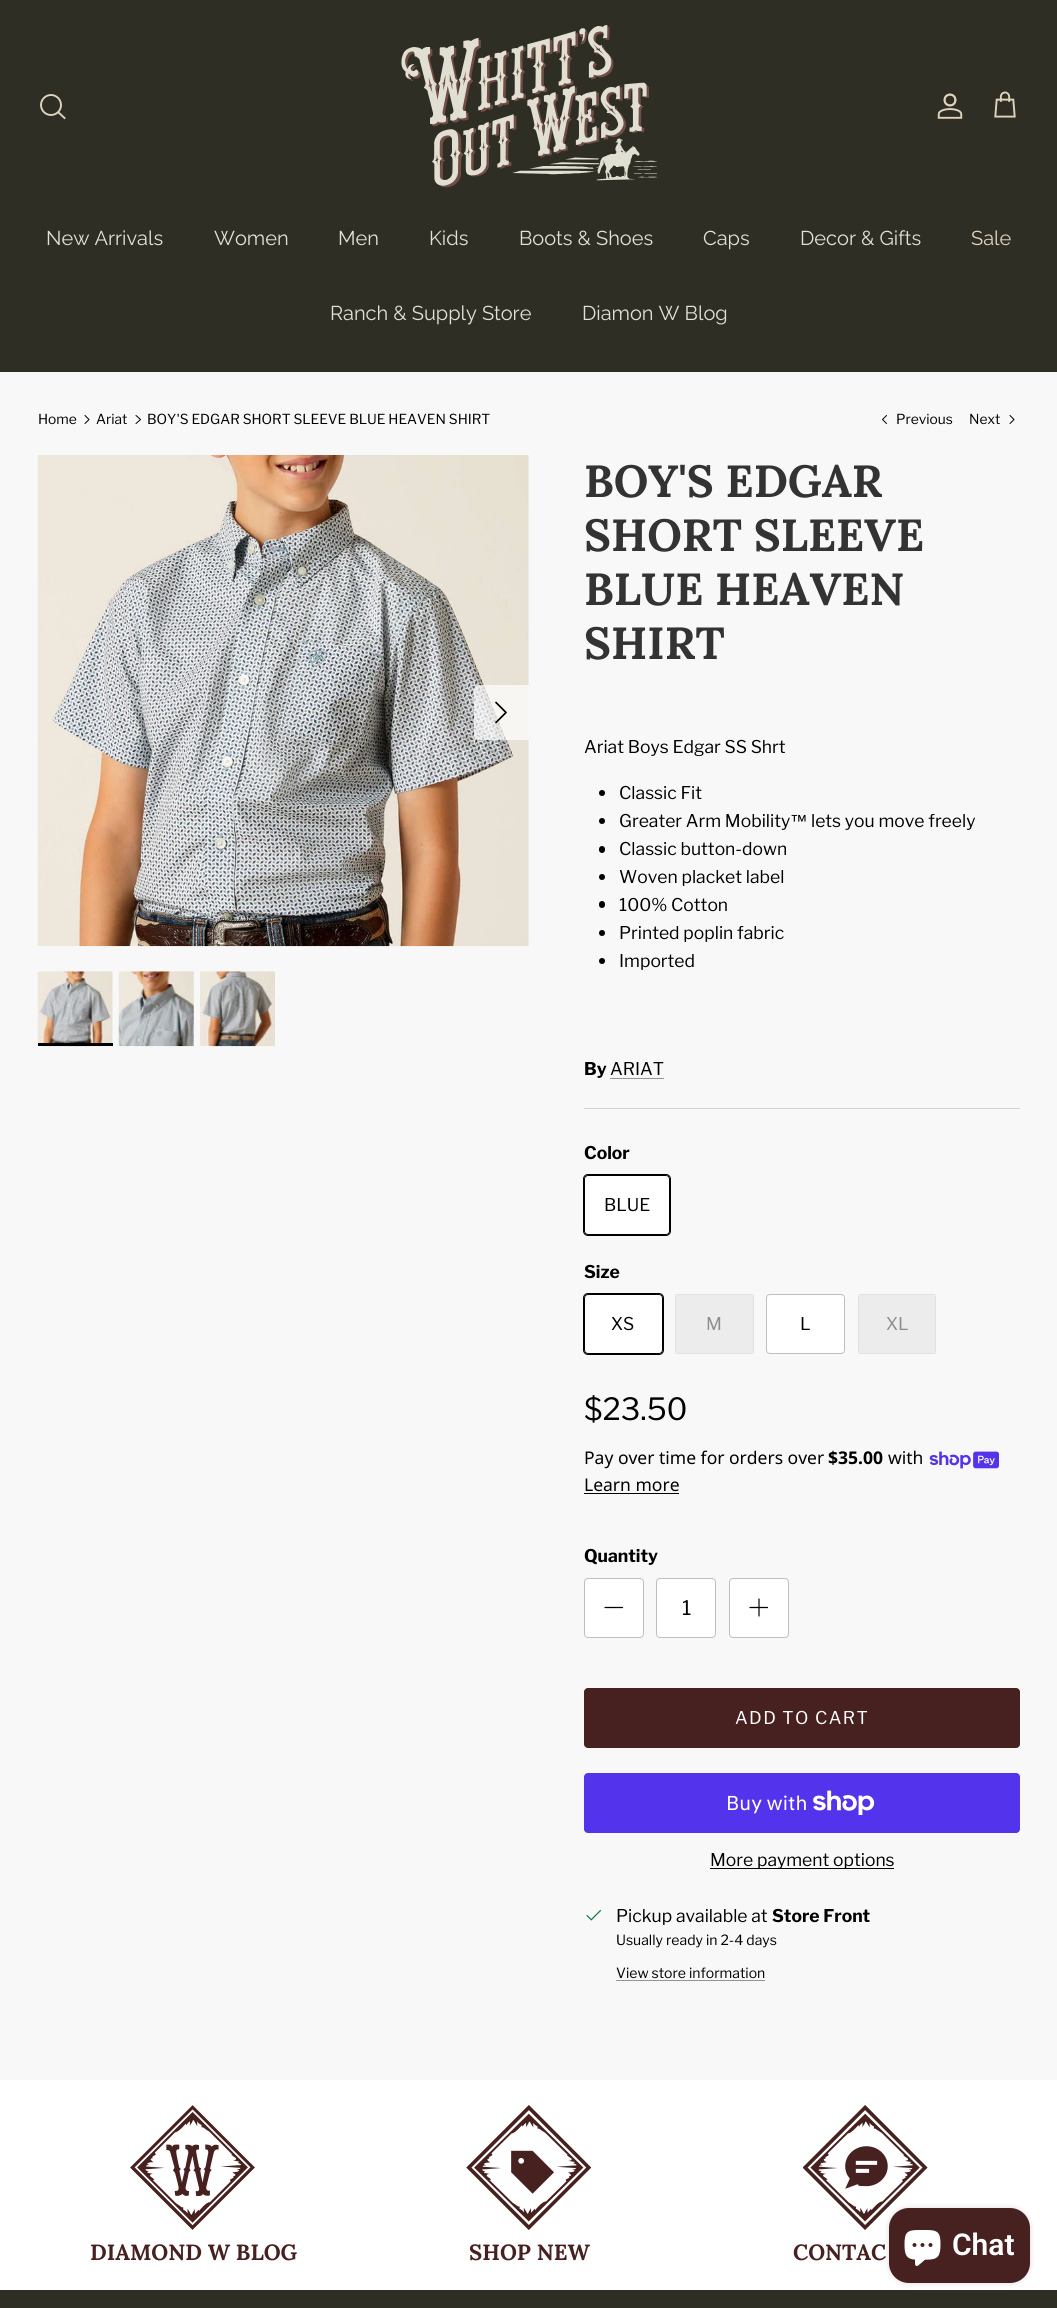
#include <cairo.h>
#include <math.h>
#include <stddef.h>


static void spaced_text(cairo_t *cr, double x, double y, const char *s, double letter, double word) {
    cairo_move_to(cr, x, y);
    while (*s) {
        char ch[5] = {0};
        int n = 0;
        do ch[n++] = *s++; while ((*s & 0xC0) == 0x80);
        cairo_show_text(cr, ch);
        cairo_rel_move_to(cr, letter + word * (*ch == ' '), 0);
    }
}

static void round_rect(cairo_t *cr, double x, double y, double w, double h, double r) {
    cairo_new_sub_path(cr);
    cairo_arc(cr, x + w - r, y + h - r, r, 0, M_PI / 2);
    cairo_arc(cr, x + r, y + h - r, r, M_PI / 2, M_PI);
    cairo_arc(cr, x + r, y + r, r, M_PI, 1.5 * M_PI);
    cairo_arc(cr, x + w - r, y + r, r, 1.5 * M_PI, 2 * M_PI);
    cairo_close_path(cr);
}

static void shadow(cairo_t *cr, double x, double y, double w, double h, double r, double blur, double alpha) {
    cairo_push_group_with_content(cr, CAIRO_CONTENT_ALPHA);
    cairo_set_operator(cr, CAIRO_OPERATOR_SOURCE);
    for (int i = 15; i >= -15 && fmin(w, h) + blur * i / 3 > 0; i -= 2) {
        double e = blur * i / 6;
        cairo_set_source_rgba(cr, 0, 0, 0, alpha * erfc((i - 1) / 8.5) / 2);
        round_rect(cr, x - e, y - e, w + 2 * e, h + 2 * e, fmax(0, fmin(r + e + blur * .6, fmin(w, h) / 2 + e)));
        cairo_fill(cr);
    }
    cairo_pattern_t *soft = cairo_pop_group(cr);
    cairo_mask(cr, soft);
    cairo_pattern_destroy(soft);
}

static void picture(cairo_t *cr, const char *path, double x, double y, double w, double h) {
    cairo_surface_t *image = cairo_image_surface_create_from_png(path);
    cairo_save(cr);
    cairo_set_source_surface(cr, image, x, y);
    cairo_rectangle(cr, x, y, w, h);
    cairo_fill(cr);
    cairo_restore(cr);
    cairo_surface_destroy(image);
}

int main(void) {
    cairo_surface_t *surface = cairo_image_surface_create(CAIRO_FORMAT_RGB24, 1057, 2308);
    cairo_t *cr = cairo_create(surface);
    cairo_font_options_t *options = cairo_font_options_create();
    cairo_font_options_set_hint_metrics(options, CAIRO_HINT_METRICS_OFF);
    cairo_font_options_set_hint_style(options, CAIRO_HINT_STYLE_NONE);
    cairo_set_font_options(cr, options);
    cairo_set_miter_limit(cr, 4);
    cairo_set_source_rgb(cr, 0.969, 0.969, 0.969);
    cairo_paint(cr);
    cairo_set_source_rgb(cr, 0.184, 0.18, 0.145);
    cairo_rectangle(cr, 0, 0, 1057, 372);
    cairo_fill(cr);
    cairo_arc(cr, 51, 105, 10, 0, 2 * M_PI);
    cairo_set_source_rgb(cr, 0.882, 0.831, 0.741);
    cairo_set_line_width(cr, 1.9);
    cairo_stroke(cr);
    cairo_new_path(cr);
    cairo_move_to(cr, 58.5, 112.5);
    cairo_line_to(cr, 64.5, 118);
    cairo_set_line_cap(cr, CAIRO_LINE_CAP_SQUARE);
    cairo_stroke(cr);
    picture(cr, "img1.png", 401, 25, 257, 163);
    picture(cr, "img2.png", 937, 93, 26, 26);
    picture(cr, "img3.png", 994, 91, 22, 27);
    cairo_select_font_face(cr, "Raleway", CAIRO_FONT_SLANT_NORMAL, CAIRO_FONT_WEIGHT_NORMAL);
    cairo_set_font_size(cr, 20);
    cairo_set_source_rgb(cr, 0.882, 0.886, 0.831);
    cairo_move_to(cr, 46, 245);
    cairo_show_text(cr, "New Arrivals");
    cairo_move_to(cr, 214, 245);
    cairo_show_text(cr, "Women");
    cairo_move_to(cr, 338, 245);
    cairo_show_text(cr, "Men");
    cairo_move_to(cr, 429, 245);
    cairo_show_text(cr, "Kids");
    cairo_move_to(cr, 519, 245);
    cairo_show_text(cr, "Boots & Shoes");
    cairo_move_to(cr, 703, 245);
    cairo_show_text(cr, "Caps");
    cairo_move_to(cr, 800, 245);
    cairo_show_text(cr, "Decor & Gifts");
    cairo_set_source_rgb(cr, 0.882, 0.831, 0.741);
    cairo_move_to(cr, 971, 245);
    cairo_show_text(cr, "Sale");
    cairo_set_source_rgb(cr, 0.882, 0.886, 0.831);
    cairo_move_to(cr, 330, 320);
    cairo_show_text(cr, "Ranch & Supply Store");
    cairo_move_to(cr, 582, 320);
    cairo_show_text(cr, "Diamon W Blog");
    cairo_select_font_face(cr, "Libre Franklin", CAIRO_FONT_SLANT_NORMAL, CAIRO_FONT_WEIGHT_NORMAL);
    cairo_set_font_size(cr, 13.75);
    cairo_set_source_rgb(cr, 0, 0, 0);
    cairo_move_to(cr, 38, 424);
    cairo_show_text(cr, "Home");
    cairo_new_path(cr);
    cairo_move_to(cr, 85, 423.5);
    cairo_line_to(cr, 89, 419.5);
    cairo_line_to(cr, 85, 415.5);
    cairo_move_to(cr, 136, 423.5);
    cairo_line_to(cr, 140.5, 419.5);
    cairo_line_to(cr, 136, 415.5);
    cairo_set_line_width(cr, 1);
    cairo_set_line_cap(cr, CAIRO_LINE_CAP_ROUND);
    cairo_set_line_join(cr, CAIRO_LINE_JOIN_ROUND);
    cairo_stroke(cr);
    cairo_move_to(cr, 96, 424);
    cairo_show_text(cr, "Ariat");
    cairo_move_to(cr, 147, 424);
    cairo_show_text(cr, "BOY'S EDGAR SHORT SLEEVE BLUE HEAVEN SHIRT");
    cairo_new_path(cr);
    cairo_move_to(cr, 886.5, 423.5);
    cairo_line_to(cr, 882.5, 419.5);
    cairo_line_to(cr, 886.5, 415.5);
    cairo_stroke(cr);
    cairo_move_to(cr, 896, 424);
    cairo_show_text(cr, "Previous");
    cairo_move_to(cr, 969, 424);
    cairo_show_text(cr, "Next");
    cairo_new_path(cr);
    cairo_move_to(cr, 1010, 423.5);
    cairo_line_to(cr, 1014, 419.5);
    cairo_line_to(cr, 1010, 415.5);
    cairo_stroke(cr);
    picture(cr, "img4.png", 37, 455, 492, 492);
    cairo_set_source_rgba(cr, 1, 1, 1, 0.7);
    cairo_new_path(cr);
    cairo_move_to(cr, 478, 685);
    cairo_line_to(cr, 529, 685);
    cairo_line_to(cr, 529, 740);
    cairo_line_to(cr, 478, 740);
    cairo_curve_to(cr, 476, 740, 474, 738, 474, 736);
    cairo_line_to(cr, 474, 689);
    cairo_curve_to(cr, 474, 687, 476, 685, 478, 685);
    cairo_close_path(cr);
    cairo_fill(cr);
    cairo_new_path(cr);
    cairo_move_to(cr, 496, 722.5);
    cairo_line_to(cr, 506, 712.5);
    cairo_line_to(cr, 496, 702.5);
    cairo_set_source_rgb(cr, 0, 0, 0);
    cairo_set_line_width(cr, 1.7);
    cairo_stroke(cr);
    picture(cr, "img5.png", 37, 971, 76, 76);
    cairo_rectangle(cr, 38, 1043, 75, 3);
    cairo_fill(cr);
    picture(cr, "img6.png", 118, 971, 76, 76);
    picture(cr, "img7.png", 200, 971, 75, 76);
    cairo_select_font_face(cr, "Lora", CAIRO_FONT_SLANT_NORMAL, CAIRO_FONT_WEIGHT_BOLD);
    cairo_set_font_size(cr, 45);
    cairo_set_source_rgb(cr, 0.2, 0.2, 0.2);
    cairo_move_to(cr, 584, 497);
    cairo_show_text(cr, "BOY'S EDGAR");
    cairo_move_to(cr, 584, 551);
    cairo_show_text(cr, "SHORT SLEEVE");
    cairo_move_to(cr, 584, 605);
    cairo_show_text(cr, "BLUE HEAVEN");
    cairo_move_to(cr, 584, 659);
    cairo_show_text(cr, "SHIRT");
    cairo_select_font_face(cr, "Libre Franklin", CAIRO_FONT_SLANT_NORMAL, CAIRO_FONT_WEIGHT_NORMAL);
    cairo_set_font_size(cr, 17.5);
    cairo_set_source_rgb(cr, 0, 0, 0);
    cairo_move_to(cr, 584, 753);
    cairo_show_text(cr, "Ariat Boys Edgar SS Shrt");
    cairo_new_path(cr);
    cairo_arc(cr, 602, 793, 3, 0, 2 * M_PI);
    cairo_fill(cr);
    cairo_move_to(cr, 619, 799);
    cairo_show_text(cr, "Classic Fit");
    cairo_new_path(cr);
    cairo_arc(cr, 602, 821, 3, 0, 2 * M_PI);
    cairo_fill(cr);
    cairo_move_to(cr, 619, 827);
    cairo_show_text(cr, "Greater Arm Mobility");
    cairo_select_font_face(cr, "Liberation Sans", CAIRO_FONT_SLANT_NORMAL, CAIRO_FONT_WEIGHT_NORMAL);
    cairo_move_to(cr, 790, 827);
    cairo_show_text(cr, "™");
    cairo_select_font_face(cr, "Libre Franklin", CAIRO_FONT_SLANT_NORMAL, CAIRO_FONT_WEIGHT_NORMAL);
    cairo_move_to(cr, 811, 827);
    cairo_show_text(cr, "lets you move freely");
    round_rect(cr, 599, 846, 6, 7, 3);
    cairo_fill(cr);
    cairo_move_to(cr, 619, 855);
    cairo_show_text(cr, "Classic button-down");
    cairo_new_path(cr);
    cairo_arc(cr, 602, 877, 3, 0, 2 * M_PI);
    cairo_fill(cr);
    cairo_move_to(cr, 619, 883);
    cairo_show_text(cr, "Woven placket label");
    round_rect(cr, 599, 901, 6, 7, 3);
    cairo_fill(cr);
    cairo_move_to(cr, 619, 911);
    cairo_show_text(cr, "100% Cotton");
    cairo_new_path(cr);
    cairo_arc(cr, 602, 933, 3, 0, 2 * M_PI);
    cairo_fill(cr);
    cairo_move_to(cr, 619, 939);
    cairo_show_text(cr, "Printed poplin fabric");
    cairo_new_path(cr);
    cairo_arc(cr, 602, 961, 3, 0, 2 * M_PI);
    cairo_fill(cr);
    cairo_move_to(cr, 619, 967);
    cairo_show_text(cr, "Imported");
    cairo_select_font_face(cr, "Libre Franklin", CAIRO_FONT_SLANT_NORMAL, CAIRO_FONT_WEIGHT_BOLD);
    cairo_move_to(cr, 584, 1075);
    cairo_show_text(cr, "By");
    cairo_select_font_face(cr, "Libre Franklin", CAIRO_FONT_SLANT_NORMAL, CAIRO_FONT_WEIGHT_NORMAL);
    cairo_move_to(cr, 610, 1075);
    cairo_show_text(cr, "ARIAT");
    cairo_set_source_rgb(cr, 0.58, 0.58, 0.58);
    cairo_rectangle(cr, 610, 1078, 54, 1);
    cairo_fill(cr);
    cairo_set_source_rgb(cr, 0.831, 0.831, 0.831);
    cairo_rectangle(cr, 584, 1108, 436, 1);
    cairo_fill(cr);
    cairo_select_font_face(cr, "Libre Franklin", CAIRO_FONT_SLANT_NORMAL, CAIRO_FONT_WEIGHT_BOLD);
    cairo_set_source_rgb(cr, 0, 0, 0);
    cairo_move_to(cr, 584, 1159);
    cairo_show_text(cr, "Color");
    round_rect(cr, 583.5, 1174.5, 87, 61, 4.5);
    cairo_set_line_width(cr, 1);
    cairo_set_line_cap(cr, CAIRO_LINE_CAP_BUTT);
    cairo_set_line_join(cr, CAIRO_LINE_JOIN_MITER);
    cairo_stroke(cr);
    cairo_set_source_rgb(cr, 1, 1, 1);
    round_rect(cr, 584.5, 1175.5, 85, 59, 3.5);
    cairo_fill_preserve(cr);
    cairo_set_source_rgb(cr, 0, 0, 0);
    cairo_stroke(cr);
    cairo_select_font_face(cr, "Libre Franklin", CAIRO_FONT_SLANT_NORMAL, CAIRO_FONT_WEIGHT_NORMAL);
    cairo_move_to(cr, 604, 1211);
    cairo_show_text(cr, "BLUE");
    cairo_select_font_face(cr, "Libre Franklin", CAIRO_FONT_SLANT_NORMAL, CAIRO_FONT_WEIGHT_BOLD);
    cairo_move_to(cr, 584, 1278);
    cairo_show_text(cr, "Size");
    round_rect(cr, 583.5, 1293.5, 80, 61, 4.5);
    cairo_stroke(cr);
    cairo_set_source_rgb(cr, 1, 1, 1);
    round_rect(cr, 584.5, 1294.5, 78, 59, 3.5);
    cairo_fill_preserve(cr);
    cairo_set_source_rgb(cr, 0, 0, 0);
    cairo_stroke(cr);
    cairo_select_font_face(cr, "Libre Franklin", CAIRO_FONT_SLANT_NORMAL, CAIRO_FONT_WEIGHT_NORMAL);
    cairo_move_to(cr, 611, 1330);
    cairo_show_text(cr, "XS");
    cairo_set_source_rgb(cr, 0.922, 0.922, 0.922);
    round_rect(cr, 675, 1294, 79, 60, 4);
    cairo_fill(cr);
    cairo_rectangle(cr, 675.5, 1294.5, 78, 59);
    cairo_set_source_rgba(cr, 0, 0, 0, 0.05);
    cairo_stroke(cr);
    cairo_set_source_rgb(cr, 0.553, 0.553, 0.553);
    cairo_move_to(cr, 706, 1330);
    cairo_show_text(cr, "M");
    cairo_set_source_rgb(cr, 1, 1, 1);
    round_rect(cr, 766.5, 1294.5, 78, 59, 3.5);
    cairo_fill_preserve(cr);
    cairo_set_source_rgb(cr, 0.749, 0.749, 0.749);
    cairo_stroke(cr);
    cairo_set_source_rgb(cr, 0, 0, 0);
    cairo_move_to(cr, 800, 1330);
    cairo_show_text(cr, "L");
    cairo_set_source_rgb(cr, 0.922, 0.922, 0.922);
    round_rect(cr, 858, 1294, 78, 60, 4);
    cairo_fill(cr);
    cairo_rectangle(cr, 858.5, 1294.5, 77, 59);
    cairo_set_source_rgba(cr, 0, 0, 0, 0.05);
    cairo_stroke(cr);
    cairo_set_source_rgb(cr, 0.553, 0.553, 0.553);
    cairo_move_to(cr, 886, 1330);
    cairo_show_text(cr, "XL");
    cairo_set_font_size(cr, 30.5);
    cairo_set_source_rgb(cr, 0, 0, 0);
    cairo_move_to(cr, 584, 1420);
    cairo_show_text(cr, "$23.50");
    cairo_select_font_face(cr, "Noto Sans", CAIRO_FONT_SLANT_NORMAL, CAIRO_FONT_WEIGHT_NORMAL);
    cairo_set_font_size(cr, 17.5);
    cairo_move_to(cr, 584, 1464);
    cairo_show_text(cr, "Pay over time for orders over");
    cairo_select_font_face(cr, "Noto Sans", CAIRO_FONT_SLANT_NORMAL, CAIRO_FONT_WEIGHT_BOLD);
    cairo_move_to(cr, 828, 1464);
    cairo_show_text(cr, "$35.00");
    cairo_select_font_face(cr, "Noto Sans", CAIRO_FONT_SLANT_NORMAL, CAIRO_FONT_WEIGHT_NORMAL);
    cairo_move_to(cr, 888, 1464);
    cairo_show_text(cr, "with");
    picture(cr, "img8.png", 929, 1451, 70, 18);
    cairo_move_to(cr, 584, 1491);
    cairo_show_text(cr, "Learn more");
    cairo_rectangle(cr, 584, 1493, 95, 1);
    cairo_fill(cr);
    cairo_select_font_face(cr, "Libre Franklin", CAIRO_FONT_SLANT_NORMAL, CAIRO_FONT_WEIGHT_BOLD);
    cairo_move_to(cr, 584, 1562);
    cairo_show_text(cr, "Quantity");
    cairo_set_source_rgb(cr, 1, 1, 1);
    round_rect(cr, 584.5, 1578.5, 59, 59, 3.5);
    cairo_fill_preserve(cr);
    cairo_set_source_rgb(cr, 0.749, 0.749, 0.749);
    cairo_stroke(cr);
    cairo_new_path(cr);
    cairo_move_to(cr, 605, 1607.5);
    cairo_line_to(cr, 622.5, 1607.5);
    cairo_set_source_rgb(cr, 0, 0, 0);
    cairo_set_line_width(cr, 1.2);
    cairo_set_line_cap(cr, CAIRO_LINE_CAP_ROUND);
    cairo_set_line_join(cr, CAIRO_LINE_JOIN_ROUND);
    cairo_stroke(cr);
    cairo_set_source_rgb(cr, 1, 1, 1);
    round_rect(cr, 656.5, 1578.5, 59, 59, 3.5);
    cairo_fill_preserve(cr);
    cairo_set_source_rgb(cr, 0.749, 0.749, 0.749);
    cairo_set_line_width(cr, 1);
    cairo_set_line_cap(cr, CAIRO_LINE_CAP_BUTT);
    cairo_set_line_join(cr, CAIRO_LINE_JOIN_MITER);
    cairo_stroke(cr);
    cairo_select_font_face(cr, "Libre Franklin", CAIRO_FONT_SLANT_NORMAL, CAIRO_FONT_WEIGHT_NORMAL);
    cairo_set_font_size(cr, 20);
    cairo_set_source_rgb(cr, 0, 0, 0);
    cairo_move_to(cr, 682, 1615);
    cairo_show_text(cr, "1");
    cairo_set_source_rgb(cr, 1, 1, 1);
    round_rect(cr, 729.5, 1578.5, 59, 59, 3.5);
    cairo_fill_preserve(cr);
    cairo_set_source_rgb(cr, 0.749, 0.749, 0.749);
    cairo_stroke(cr);
    cairo_new_path(cr);
    cairo_move_to(cr, 759, 1599);
    cairo_line_to(cr, 759, 1616);
    cairo_move_to(cr, 750, 1607.5);
    cairo_line_to(cr, 767.5, 1607.5);
    cairo_set_source_rgb(cr, 0, 0, 0);
    cairo_set_line_width(cr, 1.2);
    cairo_set_line_cap(cr, CAIRO_LINE_CAP_ROUND);
    cairo_set_line_join(cr, CAIRO_LINE_JOIN_ROUND);
    cairo_stroke(cr);
    cairo_set_source_rgb(cr, 0.278, 0.129, 0.125);
    round_rect(cr, 584.5, 1688.5, 435, 59, 3.5);
    cairo_fill_preserve(cr);
    cairo_set_line_width(cr, 1);
    cairo_set_line_cap(cr, CAIRO_LINE_CAP_BUTT);
    cairo_set_line_join(cr, CAIRO_LINE_JOIN_MITER);
    cairo_stroke(cr);
    cairo_set_font_size(cr, 17.5);
    cairo_set_source_rgb(cr, 1, 1, 1);
    spaced_text(cr, 735, 1724, "ADD TO CART", 1.4, 0);
    cairo_set_source_rgb(cr, 0.329, 0.2, 0.922);
    round_rect(cr, 584, 1773, 436, 60, 4);
    cairo_fill(cr);
    cairo_select_font_face(cr, "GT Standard", CAIRO_FONT_SLANT_NORMAL, CAIRO_FONT_WEIGHT_NORMAL);
    cairo_set_font_size(cr, 20);
    cairo_set_source_rgb(cr, 1, 1, 1);
    cairo_move_to(cr, 726, 1810);
    cairo_show_text(cr, "Buy with");
    picture(cr, "img9.png", 813, 1790, 62, 25);
    cairo_set_source_rgb(cr, 0, 0, 0);
    cairo_rectangle(cr, 710, 1868, 184, 1);
    cairo_fill(cr);
    cairo_select_font_face(cr, "Libre Franklin", CAIRO_FONT_SLANT_NORMAL, CAIRO_FONT_WEIGHT_NORMAL);
    cairo_set_font_size(cr, 17.5);
    cairo_move_to(cr, 710, 1866);
    cairo_show_text(cr, "More payment options");
    picture(cr, "img10.png", 586, 1909, 16, 12);
    cairo_move_to(cr, 616, 1922);
    cairo_show_text(cr, "Pickup available at");
    cairo_select_font_face(cr, "Libre Franklin", CAIRO_FONT_SLANT_NORMAL, CAIRO_FONT_WEIGHT_BOLD);
    cairo_move_to(cr, 772, 1922);
    cairo_show_text(cr, "Store Front");
    cairo_select_font_face(cr, "Libre Franklin", CAIRO_FONT_SLANT_NORMAL, CAIRO_FONT_WEIGHT_NORMAL);
    cairo_set_font_size(cr, 14);
    cairo_move_to(cr, 616, 1945);
    cairo_show_text(cr, "Usually ready in 2-4 days");
    cairo_move_to(cr, 616, 1978);
    cairo_show_text(cr, "View store information");
    cairo_set_source_rgb(cr, 0.58, 0.58, 0.58);
    cairo_rectangle(cr, 616, 1980, 149, 1);
    cairo_fill(cr);
    cairo_set_source_rgb(cr, 1, 1, 1);
    cairo_rectangle(cr, 0, 2080, 1057, 210);
    cairo_fill(cr);
    picture(cr, "img11.png", 130, 2105, 125, 125);
    cairo_select_font_face(cr, "Lora", CAIRO_FONT_SLANT_NORMAL, CAIRO_FONT_WEIGHT_BOLD);
    cairo_set_font_size(cr, 22);
    cairo_set_source_rgb(cr, 0.278, 0.129, 0.125);
    cairo_move_to(cr, 90, 2260);
    cairo_show_text(cr, "DIAMOND W BLOG");
    picture(cr, "img12.png", 466, 2105, 125, 125);
    cairo_move_to(cr, 469, 2260);
    cairo_show_text(cr, "SHOP NEW");
    picture(cr, "img13.png", 803, 2105, 125, 125);
    cairo_move_to(cr, 793, 2260);
    cairo_show_text(cr, "CONTAC");
    cairo_set_source_rgb(cr, 0.184, 0.18, 0.145);
    cairo_rectangle(cr, 0, 2290, 1057, 18);
    cairo_fill(cr);
    cairo_set_source_rgb(cr, 0, 0, 0);
    shadow(cr, 889, 2208, 141, 75, 20, 3, 0.15);
    cairo_set_source_rgb(cr, 0.278, 0.129, 0.125);
    round_rect(cr, 889, 2208, 141, 75, 20);
    cairo_fill(cr);
    picture(cr, "img14.png", 904, 2230, 37, 36);
    cairo_select_font_face(cr, "Roboto SemiBold", CAIRO_FONT_SLANT_NORMAL, CAIRO_FONT_WEIGHT_NORMAL);
    cairo_set_font_size(cr, 30);
    cairo_set_source_rgb(cr, 1, 1, 1);
    cairo_move_to(cr, 952, 2255);
    cairo_show_text(cr, "Chat");
    cairo_surface_write_to_png(surface, "page.png");
    cairo_font_options_destroy(options);
    cairo_destroy(cr);
    cairo_surface_destroy(surface);
    return 0;
}
